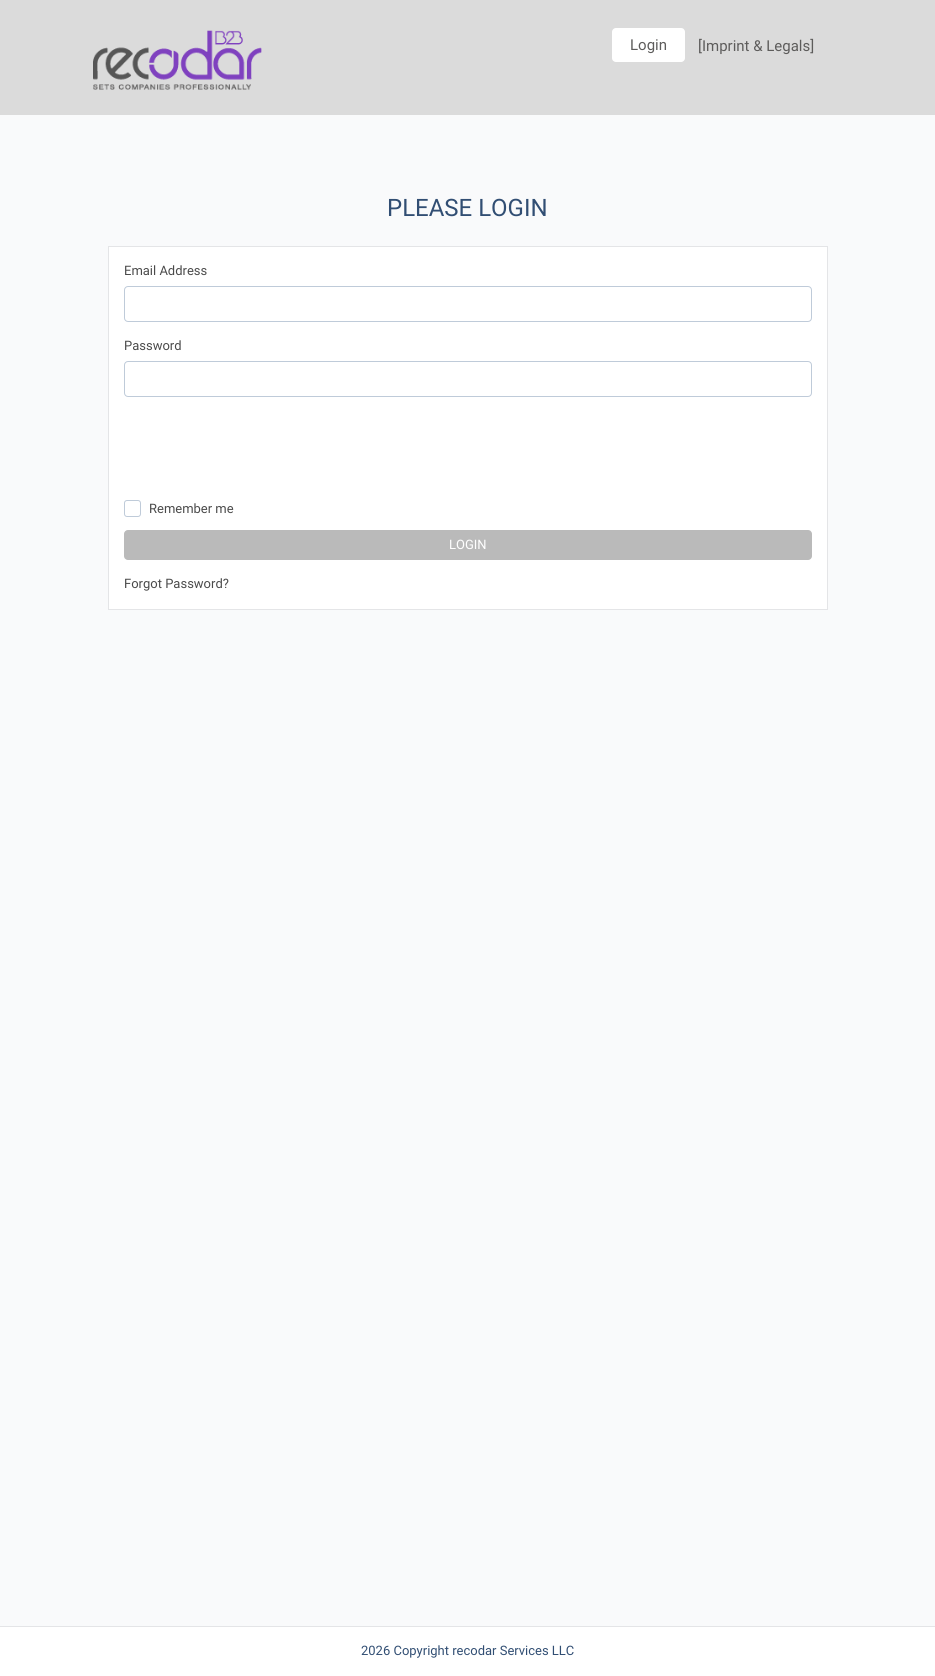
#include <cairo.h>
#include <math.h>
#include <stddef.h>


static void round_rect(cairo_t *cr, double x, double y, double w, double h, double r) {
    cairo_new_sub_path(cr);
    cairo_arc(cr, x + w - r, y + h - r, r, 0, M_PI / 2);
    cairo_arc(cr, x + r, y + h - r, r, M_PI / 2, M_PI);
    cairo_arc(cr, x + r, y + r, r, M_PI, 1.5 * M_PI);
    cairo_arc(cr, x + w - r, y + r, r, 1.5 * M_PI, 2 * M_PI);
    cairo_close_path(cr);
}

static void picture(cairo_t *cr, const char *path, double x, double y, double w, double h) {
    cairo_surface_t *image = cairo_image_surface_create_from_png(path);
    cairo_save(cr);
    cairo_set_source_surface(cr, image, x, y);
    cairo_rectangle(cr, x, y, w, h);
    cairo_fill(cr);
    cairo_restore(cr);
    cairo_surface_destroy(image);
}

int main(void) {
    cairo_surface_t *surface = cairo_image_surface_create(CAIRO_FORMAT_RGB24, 935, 1676);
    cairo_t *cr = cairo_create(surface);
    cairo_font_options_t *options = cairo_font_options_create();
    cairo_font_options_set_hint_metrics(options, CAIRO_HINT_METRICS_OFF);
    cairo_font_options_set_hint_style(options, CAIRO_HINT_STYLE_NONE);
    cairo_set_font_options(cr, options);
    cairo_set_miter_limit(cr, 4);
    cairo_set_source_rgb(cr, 0.976, 0.98, 0.984);
    cairo_paint(cr);
    cairo_set_source_rgb(cr, 0.859, 0.859, 0.859);
    cairo_rectangle(cr, 0, 0, 935, 115);
    cairo_fill(cr);
    picture(cr, "img1.png", 93, 30, 169, 60);
    cairo_set_source_rgb(cr, 1, 1, 1);
    round_rect(cr, 612, 28, 73, 34, 4);
    cairo_fill(cr);
    cairo_select_font_face(cr, "Roboto", CAIRO_FONT_SLANT_NORMAL, CAIRO_FONT_WEIGHT_NORMAL);
    cairo_set_font_size(cr, 15);
    cairo_set_source_rgb(cr, 0.365, 0.361, 0.357);
    cairo_move_to(cr, 630, 50);
    cairo_show_text(cr, "Login");
    cairo_move_to(cr, 698, 51);
    cairo_show_text(cr, "[Imprint & Legals]");
    cairo_set_font_size(cr, 24);
    cairo_set_source_rgb(cr, 0.192, 0.306, 0.451);
    cairo_move_to(cr, 387, 216);
    cairo_show_text(cr, "PLEASE LOGIN");
    cairo_set_source_rgb(cr, 1, 1, 1);
    cairo_rectangle(cr, 108.5, 246.5, 719, 363);
    cairo_fill_preserve(cr);
    cairo_set_source_rgb(cr, 0.894, 0.898, 0.906);
    cairo_set_line_width(cr, 1);
    cairo_stroke(cr);
    cairo_set_font_size(cr, 13);
    cairo_set_source_rgb(cr, 0.29, 0.29, 0.29);
    cairo_move_to(cr, 124, 275);
    cairo_show_text(cr, "Email Address");
    round_rect(cr, 124.5, 286.5, 687, 35, 3.5);
    cairo_set_source_rgb(cr, 0.749, 0.796, 0.851);
    cairo_stroke(cr);
    cairo_set_source_rgb(cr, 0.29, 0.29, 0.29);
    cairo_move_to(cr, 124, 350);
    cairo_show_text(cr, "Password");
    round_rect(cr, 124.5, 361.5, 687, 35, 3.5);
    cairo_set_source_rgb(cr, 0.749, 0.796, 0.851);
    cairo_stroke(cr);
    round_rect(cr, 124.5, 500.5, 16, 16, 2.5);
    cairo_stroke(cr);
    cairo_set_source_rgb(cr, 0.29, 0.29, 0.29);
    cairo_move_to(cr, 149, 513);
    cairo_show_text(cr, "Remember me");
    cairo_set_source_rgb(cr, 0.729, 0.729, 0.729);
    round_rect(cr, 124, 530, 688, 30, 4);
    cairo_fill(cr);
    cairo_set_source_rgb(cr, 1, 1, 1);
    cairo_move_to(cr, 449, 549);
    cairo_show_text(cr, "LOGIN");
    cairo_set_source_rgb(cr, 0.29, 0.29, 0.29);
    cairo_move_to(cr, 124, 588);
    cairo_show_text(cr, "Forgot Password?");
    cairo_set_source_rgb(cr, 1, 1, 1);
    cairo_rectangle(cr, 0, 1627, 935, 49);
    cairo_fill(cr);
    cairo_set_source_rgb(cr, 0.894, 0.898, 0.906);
    cairo_rectangle(cr, 0, 1626, 935, 1);
    cairo_fill(cr);
    cairo_set_source_rgb(cr, 0.192, 0.306, 0.451);
    cairo_move_to(cr, 361, 1655);
    cairo_show_text(cr, "2026 Copyright recodar Services LLC");
    cairo_surface_write_to_png(surface, "page.png");
    cairo_font_options_destroy(options);
    cairo_destroy(cr);
    cairo_surface_destroy(surface);
    return 0;
}
